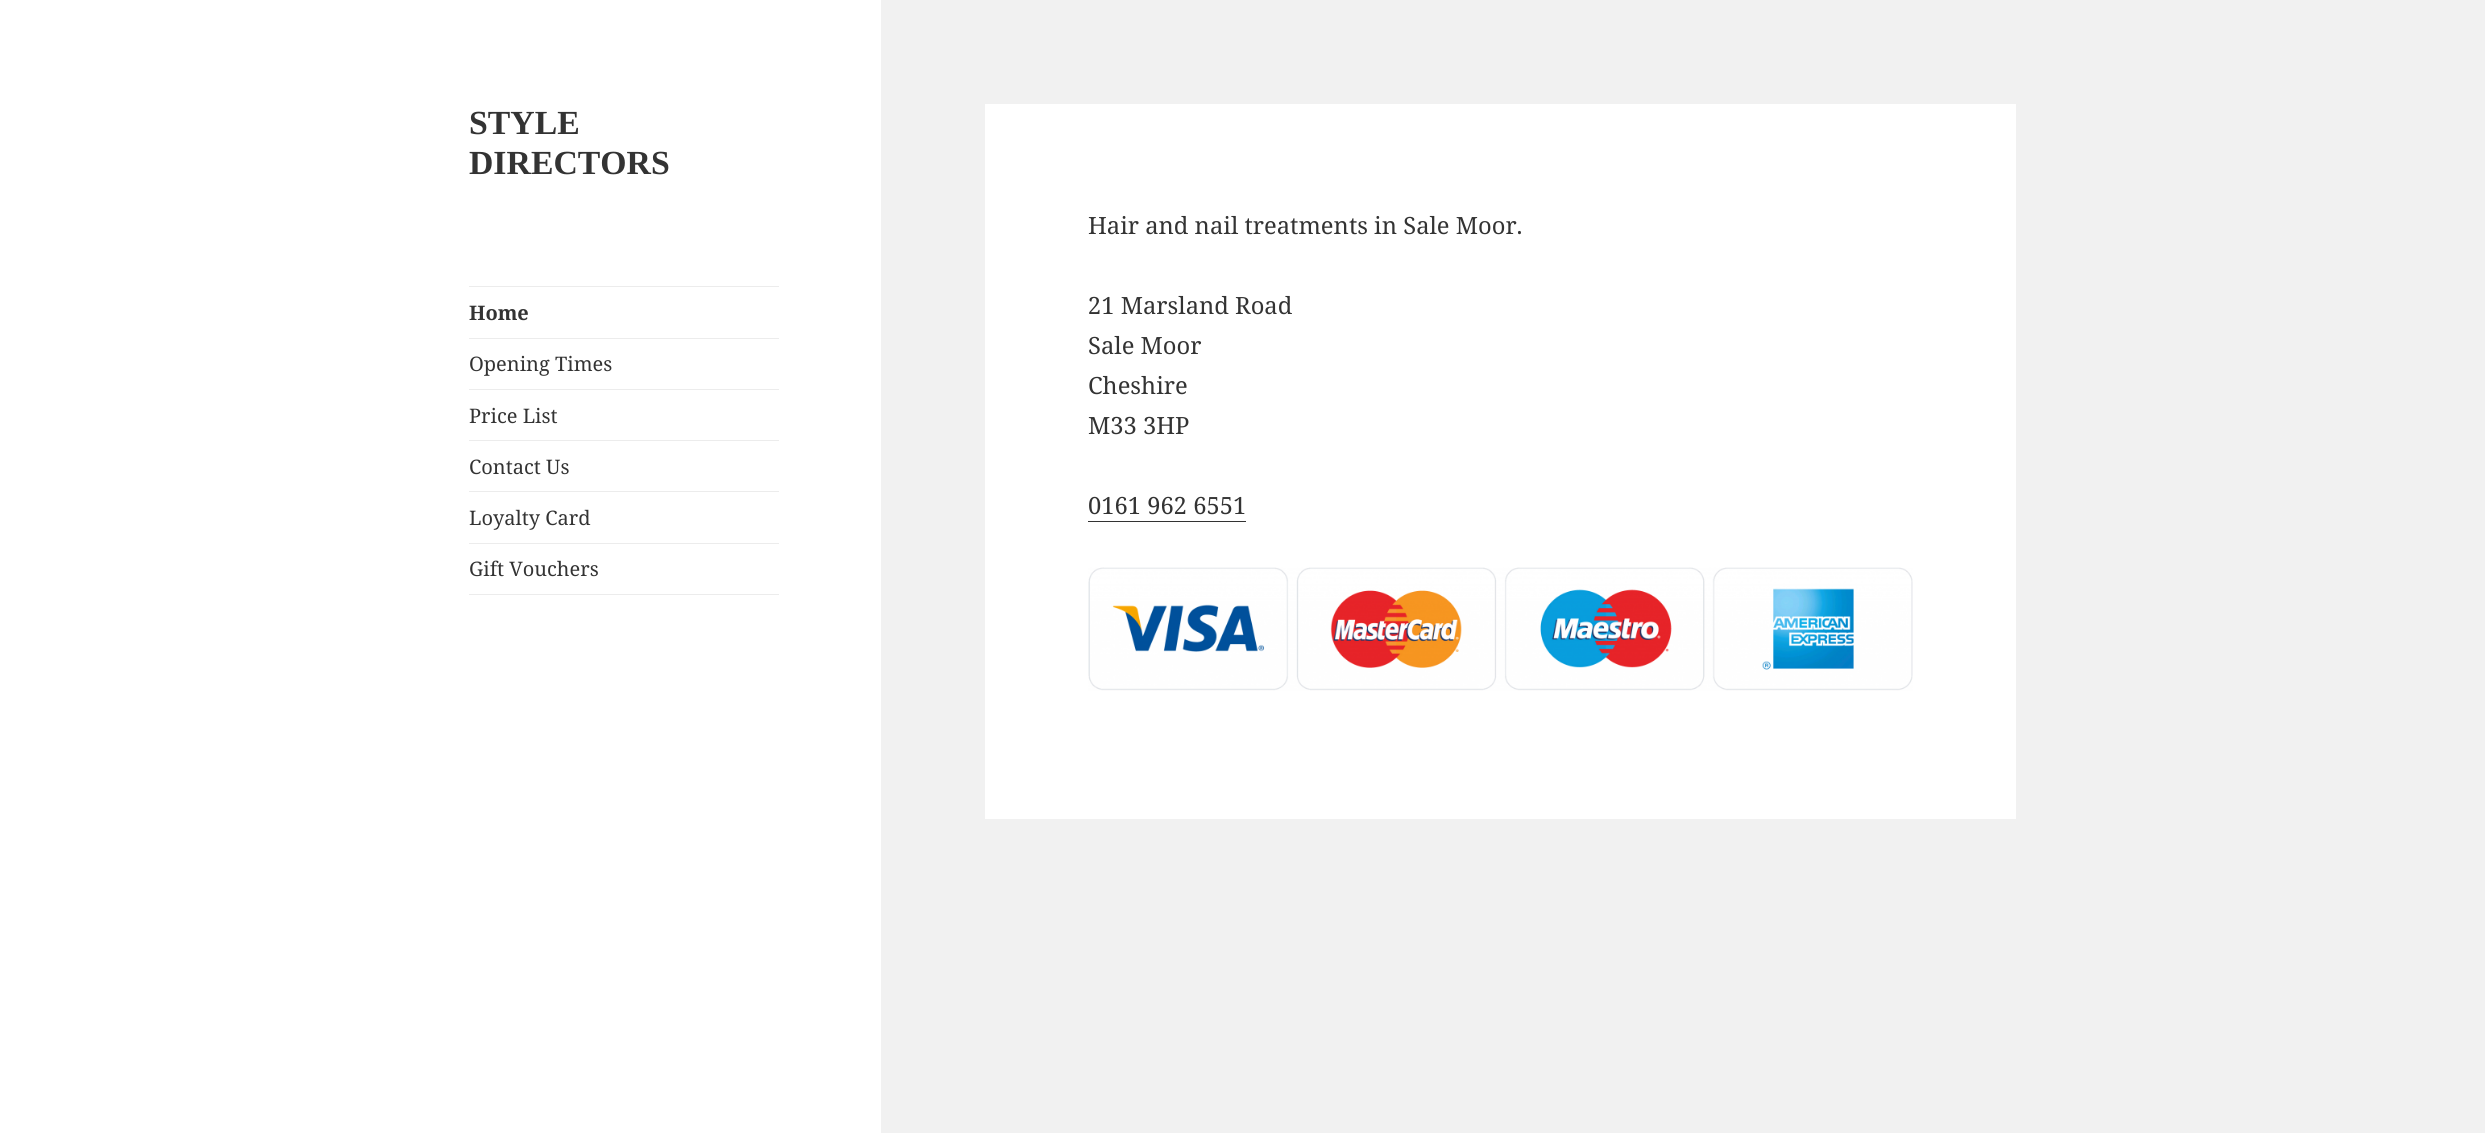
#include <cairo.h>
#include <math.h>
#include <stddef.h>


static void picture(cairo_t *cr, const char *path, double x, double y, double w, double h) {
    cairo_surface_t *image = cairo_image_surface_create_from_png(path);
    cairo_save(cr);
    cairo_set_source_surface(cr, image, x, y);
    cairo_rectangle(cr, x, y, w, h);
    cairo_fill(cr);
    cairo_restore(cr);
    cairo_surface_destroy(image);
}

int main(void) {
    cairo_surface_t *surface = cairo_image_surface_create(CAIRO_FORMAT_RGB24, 2485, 1133);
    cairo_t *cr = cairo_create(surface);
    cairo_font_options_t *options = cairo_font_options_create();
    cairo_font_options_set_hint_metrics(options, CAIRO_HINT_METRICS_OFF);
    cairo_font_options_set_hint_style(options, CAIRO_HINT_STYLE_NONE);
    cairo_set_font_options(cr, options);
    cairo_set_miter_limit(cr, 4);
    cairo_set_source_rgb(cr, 0.945, 0.945, 0.945);
    cairo_paint(cr);
    cairo_set_source_rgb(cr, 1, 1, 1);
    cairo_rectangle(cr, 0, 0, 881, 1133);
    cairo_fill(cr);
    cairo_select_font_face(cr, "Liberation Serif", CAIRO_FONT_SLANT_NORMAL, CAIRO_FONT_WEIGHT_BOLD);
    cairo_set_font_size(cr, 33.75);
    cairo_set_source_rgb(cr, 0.2, 0.2, 0.2);
    cairo_move_to(cr, 469, 134);
    cairo_show_text(cr, "STYLE");
    cairo_move_to(cr, 469, 174);
    cairo_show_text(cr, "DIRECTORS");
    cairo_set_source_rgb(cr, 0.922, 0.922, 0.922);
    cairo_rectangle(cr, 469, 286, 310, 1);
    cairo_fill(cr);
    cairo_rectangle(cr, 469, 594, 310, 1);
    cairo_fill(cr);
    cairo_select_font_face(cr, "Noto Serif", CAIRO_FONT_SLANT_NORMAL, CAIRO_FONT_WEIGHT_BOLD);
    cairo_set_font_size(cr, 20);
    cairo_set_source_rgb(cr, 0.2, 0.2, 0.2);
    cairo_move_to(cr, 469, 320);
    cairo_show_text(cr, "Home");
    cairo_set_source_rgb(cr, 0.922, 0.922, 0.922);
    cairo_rectangle(cr, 469, 338, 310, 1);
    cairo_fill(cr);
    cairo_select_font_face(cr, "Noto Serif", CAIRO_FONT_SLANT_NORMAL, CAIRO_FONT_WEIGHT_NORMAL);
    cairo_set_source_rgb(cr, 0.2, 0.2, 0.2);
    cairo_move_to(cr, 469, 371);
    cairo_show_text(cr, "Opening Times");
    cairo_set_source_rgb(cr, 0.922, 0.922, 0.922);
    cairo_rectangle(cr, 469, 389, 310, 1);
    cairo_fill(cr);
    cairo_set_source_rgb(cr, 0.2, 0.2, 0.2);
    cairo_move_to(cr, 469, 423);
    cairo_show_text(cr, "Price List");
    cairo_set_source_rgb(cr, 0.922, 0.922, 0.922);
    cairo_rectangle(cr, 469, 440, 310, 1);
    cairo_fill(cr);
    cairo_set_source_rgb(cr, 0.2, 0.2, 0.2);
    cairo_move_to(cr, 469, 474);
    cairo_show_text(cr, "Contact Us");
    cairo_set_source_rgb(cr, 0.922, 0.922, 0.922);
    cairo_rectangle(cr, 469, 491, 310, 1);
    cairo_fill(cr);
    cairo_set_source_rgb(cr, 0.2, 0.2, 0.2);
    cairo_move_to(cr, 469, 525);
    cairo_show_text(cr, "Loyalty Card");
    cairo_set_source_rgb(cr, 0.922, 0.922, 0.922);
    cairo_rectangle(cr, 469, 543, 310, 1);
    cairo_fill(cr);
    cairo_set_source_rgb(cr, 0.2, 0.2, 0.2);
    cairo_move_to(cr, 469, 576);
    cairo_show_text(cr, "Gift Vouchers");
    cairo_set_source_rgb(cr, 1, 1, 1);
    cairo_rectangle(cr, 985, 104, 1031, 715);
    cairo_fill(cr);
    cairo_set_font_size(cr, 23.75);
    cairo_set_source_rgb(cr, 0.2, 0.2, 0.2);
    cairo_move_to(cr, 1088, 234);
    cairo_show_text(cr, "Hair and nail treatments in Sale Moor.");
    cairo_move_to(cr, 1088, 314);
    cairo_show_text(cr, "21 Marsland Road");
    cairo_move_to(cr, 1088, 354);
    cairo_show_text(cr, "Sale Moor");
    cairo_move_to(cr, 1088, 394);
    cairo_show_text(cr, "Cheshire");
    cairo_move_to(cr, 1088, 434);
    cairo_show_text(cr, "M33 3HP");
    cairo_move_to(cr, 1088, 514);
    cairo_show_text(cr, "0161 962 6551");
    cairo_rectangle(cr, 1088, 521, 158, 1);
    cairo_fill(cr);
    picture(cr, "img1.png", 1088, 567, 825, 124);
    cairo_surface_write_to_png(surface, "page.png");
    cairo_font_options_destroy(options);
    cairo_destroy(cr);
    cairo_surface_destroy(surface);
    return 0;
}
